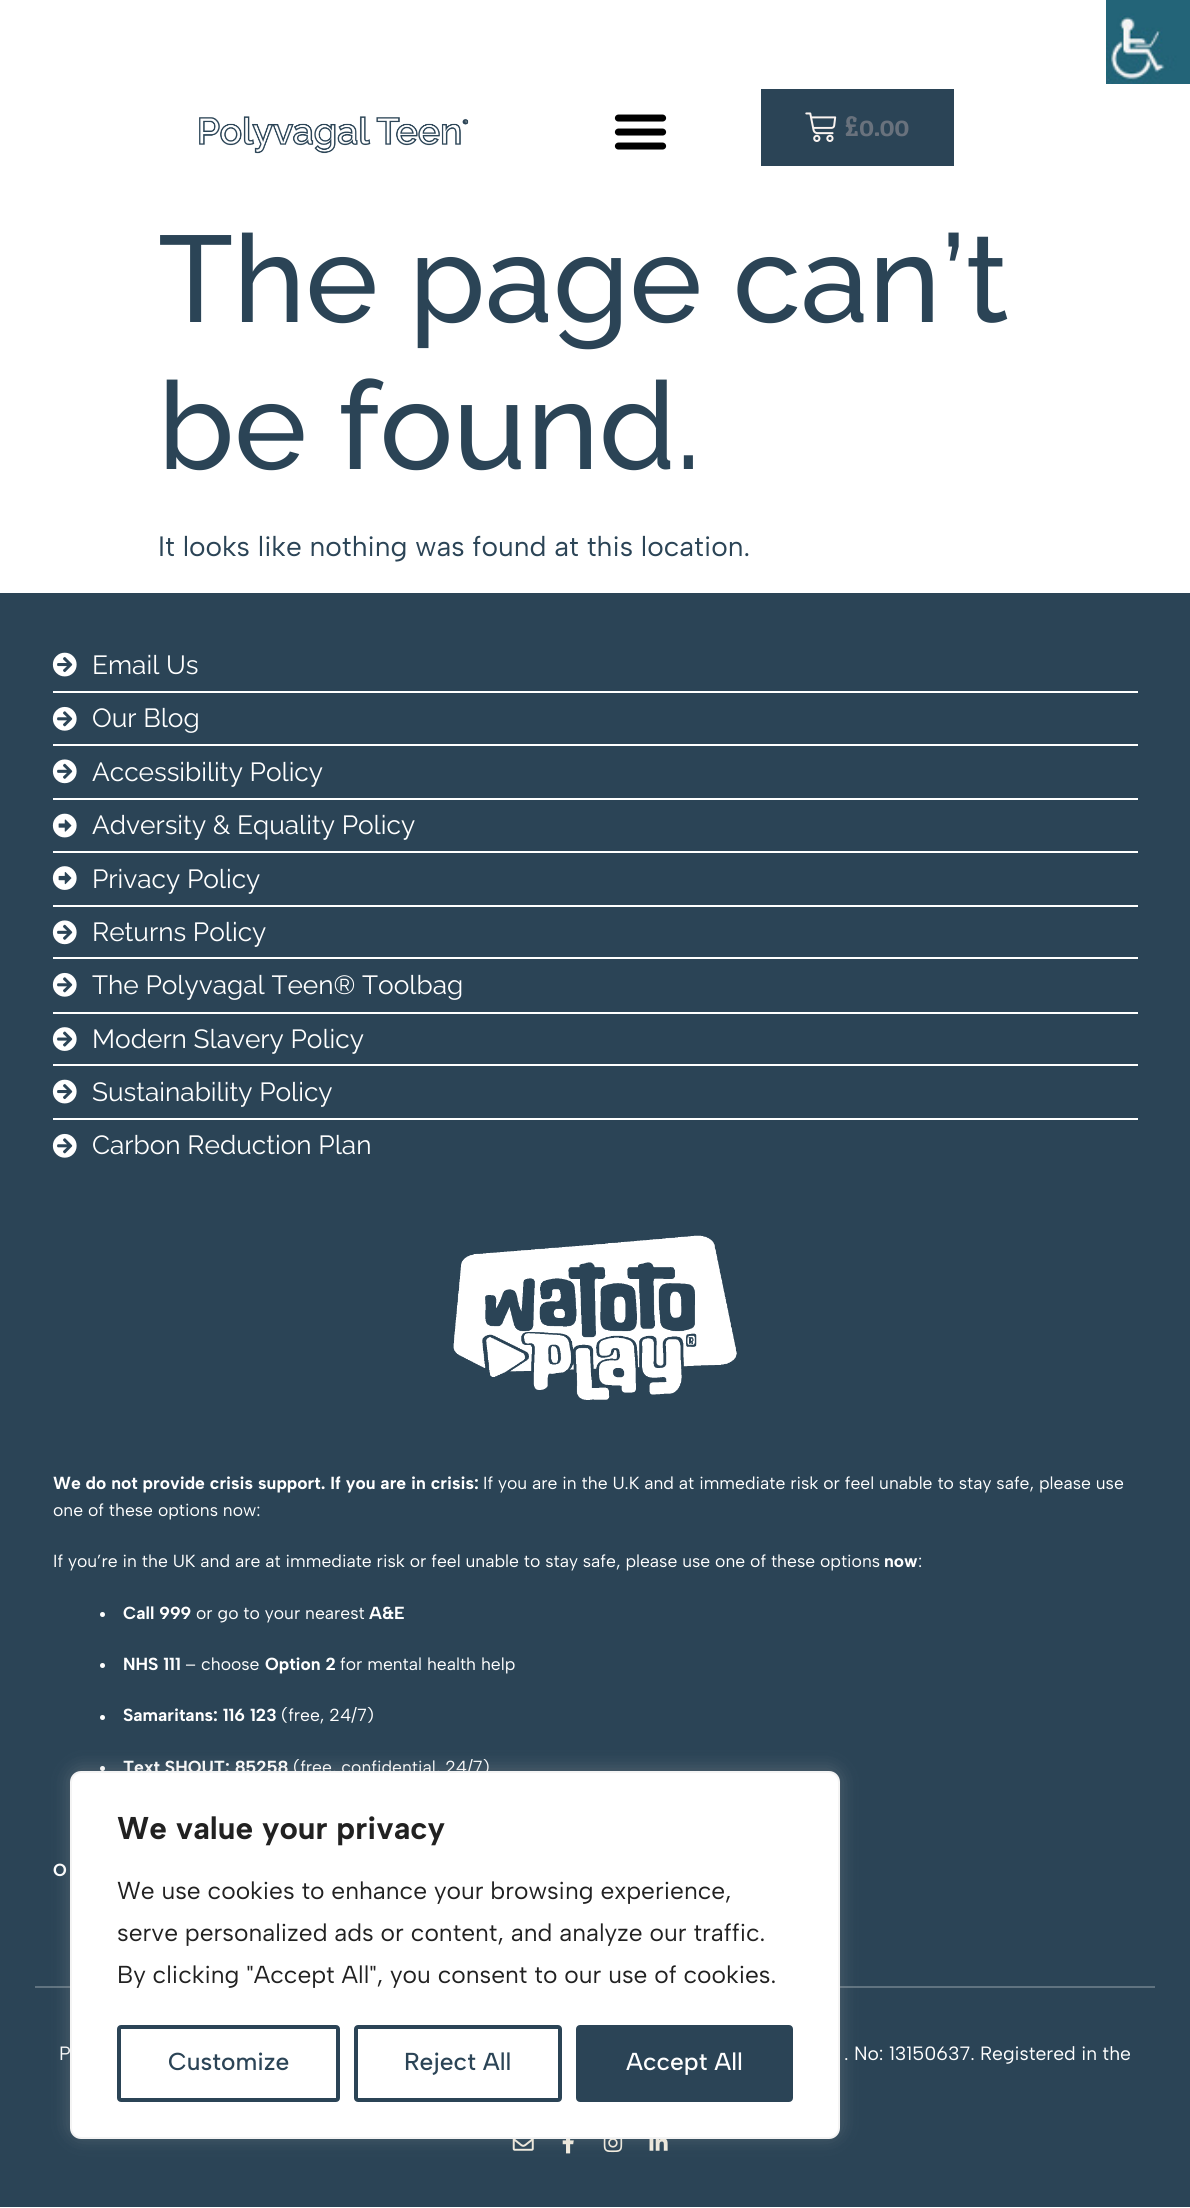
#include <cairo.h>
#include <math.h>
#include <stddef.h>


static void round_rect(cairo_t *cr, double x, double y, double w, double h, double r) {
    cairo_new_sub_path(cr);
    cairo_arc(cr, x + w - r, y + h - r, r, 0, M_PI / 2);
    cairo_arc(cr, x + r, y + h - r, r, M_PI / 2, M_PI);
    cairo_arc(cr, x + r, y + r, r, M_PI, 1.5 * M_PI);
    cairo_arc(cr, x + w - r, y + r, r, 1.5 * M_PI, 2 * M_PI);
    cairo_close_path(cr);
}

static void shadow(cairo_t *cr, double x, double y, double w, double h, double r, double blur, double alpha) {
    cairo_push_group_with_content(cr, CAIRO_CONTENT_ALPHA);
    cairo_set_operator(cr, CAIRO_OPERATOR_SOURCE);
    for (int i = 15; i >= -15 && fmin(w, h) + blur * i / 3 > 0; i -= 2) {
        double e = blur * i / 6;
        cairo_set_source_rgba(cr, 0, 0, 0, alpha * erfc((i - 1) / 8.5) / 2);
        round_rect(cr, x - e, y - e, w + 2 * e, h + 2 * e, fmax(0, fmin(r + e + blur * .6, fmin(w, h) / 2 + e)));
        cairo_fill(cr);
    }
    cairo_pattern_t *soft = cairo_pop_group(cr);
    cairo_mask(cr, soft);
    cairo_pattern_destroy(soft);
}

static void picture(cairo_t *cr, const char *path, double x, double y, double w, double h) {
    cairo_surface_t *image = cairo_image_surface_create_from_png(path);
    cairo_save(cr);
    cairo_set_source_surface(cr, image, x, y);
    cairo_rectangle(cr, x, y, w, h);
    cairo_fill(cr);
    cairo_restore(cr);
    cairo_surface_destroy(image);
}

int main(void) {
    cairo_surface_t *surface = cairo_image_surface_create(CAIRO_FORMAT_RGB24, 1190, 2208);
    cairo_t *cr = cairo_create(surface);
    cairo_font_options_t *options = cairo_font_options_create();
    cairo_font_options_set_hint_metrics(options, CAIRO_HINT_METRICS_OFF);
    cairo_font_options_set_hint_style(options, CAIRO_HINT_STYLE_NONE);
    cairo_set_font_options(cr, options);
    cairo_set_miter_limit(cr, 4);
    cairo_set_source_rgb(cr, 1, 1, 1);
    cairo_paint(cr);
    picture(cr, "img1.png", 1106, 0, 84, 84);
    picture(cr, "img2.png", 199, 116, 270, 38);
    picture(cr, "img3.png", 614, 114, 53, 36);
    cairo_set_source_rgb(cr, 0.169, 0.267, 0.337);
    cairo_rectangle(cr, 761, 89, 193, 77);
    cairo_fill(cr);
    picture(cr, "img4.png", 805, 112, 32, 30);
    cairo_select_font_face(cr, "Inika", CAIRO_FONT_SLANT_NORMAL, CAIRO_FONT_WEIGHT_BOLD);
    cairo_set_font_size(cr, 28);
    cairo_set_source_rgb(cr, 0.412, 0.447, 0.49);
    cairo_move_to(cr, 844, 136);
    cairo_show_text(cr, "£0.00");
    cairo_select_font_face(cr, "Raleway Medium", CAIRO_FONT_SLANT_NORMAL, CAIRO_FONT_WEIGHT_NORMAL);
    cairo_set_font_size(cr, 122.5);
    cairo_set_source_rgb(cr, 0.169, 0.267, 0.337);
    cairo_move_to(cr, 158, 322);
    cairo_show_text(cr, "The page can’t");
    cairo_move_to(cr, 158, 469);
    cairo_show_text(cr, "be found.");
    cairo_select_font_face(cr, "Albert Sans", CAIRO_FONT_SLANT_NORMAL, CAIRO_FONT_WEIGHT_NORMAL);
    cairo_set_font_size(cr, 28);
    cairo_move_to(cr, 158, 556);
    cairo_show_text(cr, "It looks like nothing was found at this location.");
    cairo_rectangle(cr, 0, 593, 1190, 1614);
    cairo_fill(cr);
    picture(cr, "img5.png", 52, 652, 25, 25);
    cairo_select_font_face(cr, "Raleway", CAIRO_FONT_SLANT_NORMAL, CAIRO_FONT_WEIGHT_NORMAL);
    cairo_set_font_size(cr, 26.25);
    cairo_set_source_rgb(cr, 1, 1, 1);
    cairo_move_to(cr, 92, 674);
    cairo_show_text(cr, "Email Us");
    cairo_rectangle(cr, 53, 691, 1085, 2);
    cairo_fill(cr);
    picture(cr, "img6.png", 52, 706, 25, 25);
    cairo_move_to(cr, 92, 727);
    cairo_show_text(cr, "Our Blog");
    cairo_rectangle(cr, 53, 744, 1085, 2);
    cairo_fill(cr);
    picture(cr, "img7.png", 52, 759, 25, 25);
    cairo_move_to(cr, 92, 781);
    cairo_show_text(cr, "Accessibility Policy");
    cairo_rectangle(cr, 53, 798, 1085, 2);
    cairo_fill(cr);
    picture(cr, "img8.png", 52, 813, 25, 25);
    cairo_move_to(cr, 92, 834);
    cairo_show_text(cr, "Adversity & Equality Policy");
    cairo_rectangle(cr, 53, 851, 1085, 2);
    cairo_fill(cr);
    picture(cr, "img9.png", 52, 866, 25, 24);
    cairo_move_to(cr, 92, 888);
    cairo_show_text(cr, "Privacy Policy");
    cairo_rectangle(cr, 53, 905, 1085, 2);
    cairo_fill(cr);
    picture(cr, "img7.png", 52, 920, 25, 25);
    cairo_move_to(cr, 92, 941);
    cairo_show_text(cr, "Returns Policy");
    cairo_rectangle(cr, 53, 957, 1085, 2);
    cairo_fill(cr);
    picture(cr, "img6.png", 52, 972, 25, 25);
    cairo_move_to(cr, 92, 994);
    cairo_show_text(cr, "The Polyvagal Teen® Toolbag");
    cairo_rectangle(cr, 53, 1012, 1085, 2);
    cairo_fill(cr);
    picture(cr, "img10.png", 52, 1027, 25, 24);
    cairo_move_to(cr, 92, 1048);
    cairo_show_text(cr, "Modern Slavery Policy");
    cairo_rectangle(cr, 53, 1064, 1085, 2);
    cairo_fill(cr);
    picture(cr, "img5.png", 52, 1079, 25, 25);
    cairo_move_to(cr, 92, 1101);
    cairo_show_text(cr, "Sustainability Policy");
    cairo_rectangle(cr, 53, 1118, 1085, 2);
    cairo_fill(cr);
    picture(cr, "img6.png", 52, 1133, 25, 25);
    cairo_move_to(cr, 92, 1154);
    cairo_show_text(cr, "Carbon Reduction Plan");
    picture(cr, "img11.png", 453, 1235, 284, 165);
    cairo_select_font_face(cr, "Albert Sans", CAIRO_FONT_SLANT_NORMAL, CAIRO_FONT_WEIGHT_BOLD);
    cairo_set_font_size(cr, 17.5);
    cairo_move_to(cr, 53, 1489);
    cairo_show_text(cr, "We do not provide crisis support. If you are in crisis:");
    cairo_select_font_face(cr, "Albert Sans", CAIRO_FONT_SLANT_NORMAL, CAIRO_FONT_WEIGHT_NORMAL);
    cairo_move_to(cr, 483, 1489);
    cairo_show_text(cr, "If you are in the U.K and at immediate risk or feel unable to stay safe, please use");
    cairo_move_to(cr, 53, 1516);
    cairo_show_text(cr, "one of these options now:");
    cairo_move_to(cr, 53, 1567);
    cairo_show_text(cr, "If you’re in the UK and are at immediate risk or feel unable to stay safe, please use one of these options");
    cairo_select_font_face(cr, "Albert Sans", CAIRO_FONT_SLANT_NORMAL, CAIRO_FONT_WEIGHT_BOLD);
    cairo_move_to(cr, 884, 1567);
    cairo_show_text(cr, "now");
    cairo_select_font_face(cr, "Albert Sans", CAIRO_FONT_SLANT_NORMAL, CAIRO_FONT_WEIGHT_NORMAL);
    cairo_move_to(cr, 918, 1567);
    cairo_show_text(cr, ":");
    cairo_new_path(cr);
    cairo_arc(cr, 102.5, 1614.5, 2.5, 0, 2 * M_PI);
    cairo_fill(cr);
    cairo_select_font_face(cr, "Albert Sans", CAIRO_FONT_SLANT_NORMAL, CAIRO_FONT_WEIGHT_BOLD);
    cairo_move_to(cr, 123, 1619);
    cairo_show_text(cr, "Call 999");
    cairo_select_font_face(cr, "Albert Sans", CAIRO_FONT_SLANT_NORMAL, CAIRO_FONT_WEIGHT_NORMAL);
    cairo_move_to(cr, 196, 1619);
    cairo_show_text(cr, "or go to your nearest");
    cairo_select_font_face(cr, "Albert Sans", CAIRO_FONT_SLANT_NORMAL, CAIRO_FONT_WEIGHT_BOLD);
    cairo_move_to(cr, 369, 1619);
    cairo_show_text(cr, "A&E");
    cairo_new_path(cr);
    cairo_arc(cr, 102.5, 1665.5, 2.5, 0, 2 * M_PI);
    cairo_fill(cr);
    cairo_move_to(cr, 123, 1670);
    cairo_show_text(cr, "NHS 111");
    cairo_select_font_face(cr, "Albert Sans", CAIRO_FONT_SLANT_NORMAL, CAIRO_FONT_WEIGHT_NORMAL);
    cairo_move_to(cr, 185, 1670);
    cairo_show_text(cr, "– choose");
    cairo_select_font_face(cr, "Albert Sans", CAIRO_FONT_SLANT_NORMAL, CAIRO_FONT_WEIGHT_BOLD);
    cairo_move_to(cr, 265, 1670);
    cairo_show_text(cr, "Option 2");
    cairo_select_font_face(cr, "Albert Sans", CAIRO_FONT_SLANT_NORMAL, CAIRO_FONT_WEIGHT_NORMAL);
    cairo_move_to(cr, 340, 1670);
    cairo_show_text(cr, "for mental health help");
    cairo_new_path(cr);
    cairo_arc(cr, 102.5, 1717.5, 2.5, 0, 2 * M_PI);
    cairo_fill(cr);
    cairo_select_font_face(cr, "Albert Sans", CAIRO_FONT_SLANT_NORMAL, CAIRO_FONT_WEIGHT_BOLD);
    cairo_move_to(cr, 123, 1721);
    cairo_show_text(cr, "Samaritans: 116 123");
    cairo_select_font_face(cr, "Albert Sans", CAIRO_FONT_SLANT_NORMAL, CAIRO_FONT_WEIGHT_NORMAL);
    cairo_move_to(cr, 281, 1721);
    cairo_show_text(cr, "(free, 24/7)");
    cairo_new_path(cr);
    cairo_arc(cr, 102.5, 1768.5, 2.5, 0, 2 * M_PI);
    cairo_fill(cr);
    cairo_select_font_face(cr, "Albert Sans", CAIRO_FONT_SLANT_NORMAL, CAIRO_FONT_WEIGHT_BOLD);
    cairo_move_to(cr, 123, 1773);
    cairo_show_text(cr, "Text SHOUT: 85258");
    cairo_select_font_face(cr, "Albert Sans", CAIRO_FONT_SLANT_NORMAL, CAIRO_FONT_WEIGHT_NORMAL);
    cairo_move_to(cr, 293, 1773);
    cairo_show_text(cr, "(free, confidential, 24/7)");
    cairo_select_font_face(cr, "Albert Sans", CAIRO_FONT_SLANT_NORMAL, CAIRO_FONT_WEIGHT_BOLD);
    cairo_move_to(cr, 53, 1876);
    cairo_show_text(cr, "O");
    cairo_set_source_rgb(cr, 0.376, 0.451, 0.502);
    cairo_rectangle(cr, 35, 1986, 1120, 2);
    cairo_fill(cr);
    cairo_select_font_face(cr, "Albert Sans", CAIRO_FONT_SLANT_NORMAL, CAIRO_FONT_WEIGHT_NORMAL);
    cairo_set_font_size(cr, 19.25);
    cairo_set_source_rgb(cr, 1, 1, 1);
    cairo_move_to(cr, 59, 2060);
    cairo_show_text(cr, "P");
    cairo_move_to(cr, 844, 2060);
    cairo_show_text(cr, ". No: 13150637. Registered in the");
    picture(cr, "img12.png", 512, 2139, 22, 12);
    picture(cr, "img13.png", 562, 2139, 12, 15);
    picture(cr, "img14.png", 603, 2139, 20, 14);
    picture(cr, "img15.png", 649, 2139, 19, 12);
    cairo_set_source_rgb(cr, 0.675, 0.671, 0.671);
    shadow(cr, 70, 1769, 770, 368, 11, 9, 0.3);
    cairo_set_source_rgb(cr, 1, 1, 1);
    round_rect(cr, 71, 1772, 768, 366, 10);
    cairo_fill_preserve(cr);
    cairo_set_source_rgb(cr, 0.957, 0.957, 0.957);
    cairo_stroke(cr);
    cairo_select_font_face(cr, "Albert Sans", CAIRO_FONT_SLANT_NORMAL, CAIRO_FONT_WEIGHT_BOLD);
    cairo_set_font_size(cr, 31.5);
    cairo_set_source_rgb(cr, 0.129, 0.129, 0.129);
    cairo_move_to(cr, 117, 1839);
    cairo_show_text(cr, "We value your privacy");
    cairo_select_font_face(cr, "Albert Sans", CAIRO_FONT_SLANT_NORMAL, CAIRO_FONT_WEIGHT_NORMAL);
    cairo_set_font_size(cr, 24.5);
    cairo_move_to(cr, 117, 1899);
    cairo_show_text(cr, "We use cookies to enhance your browsing experience,");
    cairo_move_to(cr, 117, 1941);
    cairo_show_text(cr, "serve personalized ads or content, and analyze our traffic.");
    cairo_move_to(cr, 117, 1983);
    cairo_show_text(cr, "By clicking \"Accept All\", you consent to our use of cookies.");
    round_rect(cr, 119, 2027, 219, 73, 2);
    cairo_set_source_rgb(cr, 0.169, 0.267, 0.337);
    cairo_set_line_width(cr, 4);
    cairo_stroke(cr);
    cairo_select_font_face(cr, "Albert Sans Medium", CAIRO_FONT_SLANT_NORMAL, CAIRO_FONT_WEIGHT_NORMAL);
    cairo_move_to(cr, 168, 2070);
    cairo_show_text(cr, "Customize");
    round_rect(cr, 356, 2027, 204, 73, 2);
    cairo_stroke(cr);
    cairo_move_to(cr, 404, 2070);
    cairo_show_text(cr, "Reject All");
    round_rect(cr, 578, 2027, 213, 73, 2);
    cairo_fill_preserve(cr);
    cairo_stroke(cr);
    cairo_set_source_rgb(cr, 1, 1, 1);
    cairo_move_to(cr, 626, 2070);
    cairo_show_text(cr, "Accept All");
    cairo_surface_write_to_png(surface, "page.png");
    cairo_font_options_destroy(options);
    cairo_destroy(cr);
    cairo_surface_destroy(surface);
    return 0;
}
